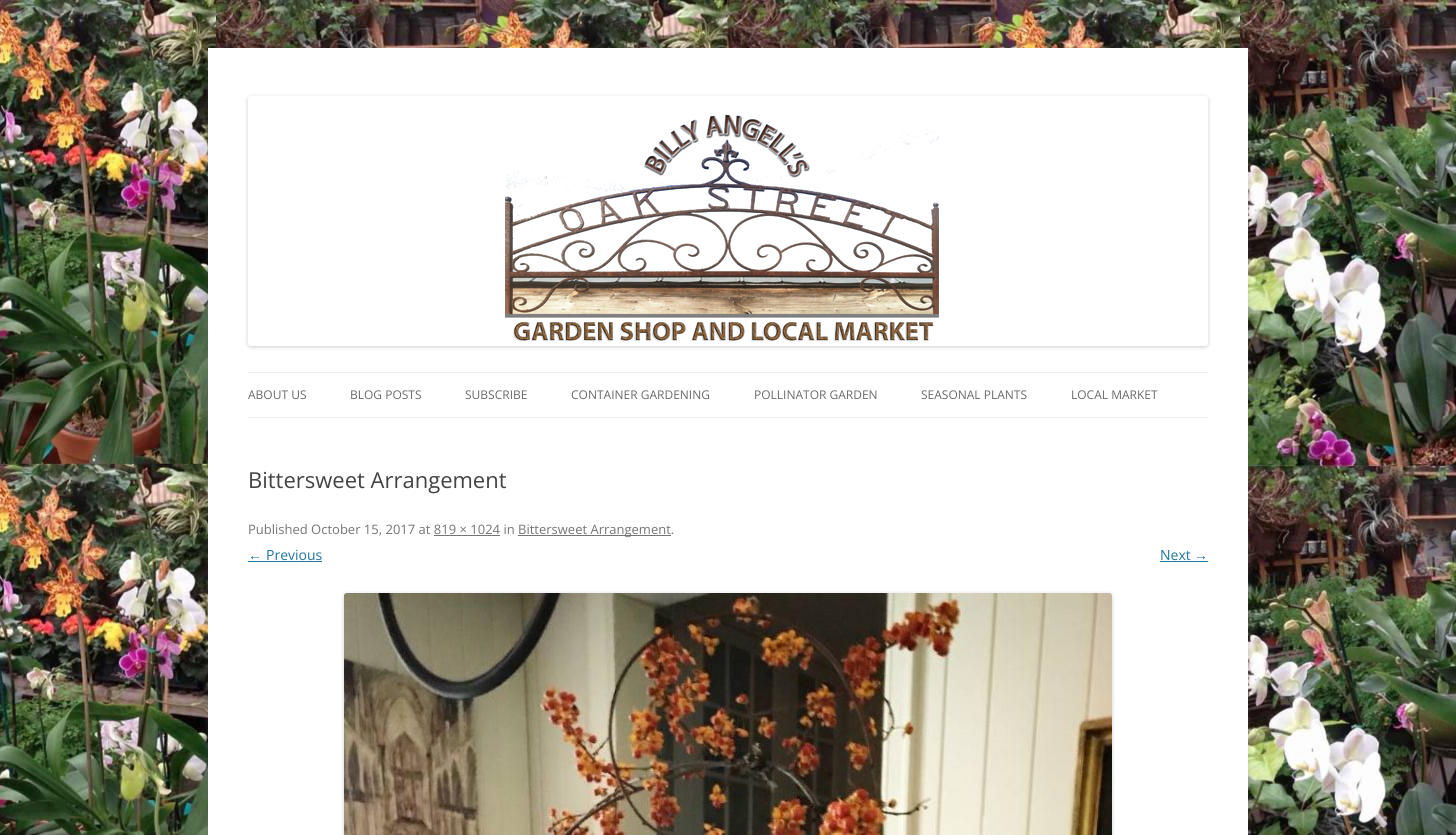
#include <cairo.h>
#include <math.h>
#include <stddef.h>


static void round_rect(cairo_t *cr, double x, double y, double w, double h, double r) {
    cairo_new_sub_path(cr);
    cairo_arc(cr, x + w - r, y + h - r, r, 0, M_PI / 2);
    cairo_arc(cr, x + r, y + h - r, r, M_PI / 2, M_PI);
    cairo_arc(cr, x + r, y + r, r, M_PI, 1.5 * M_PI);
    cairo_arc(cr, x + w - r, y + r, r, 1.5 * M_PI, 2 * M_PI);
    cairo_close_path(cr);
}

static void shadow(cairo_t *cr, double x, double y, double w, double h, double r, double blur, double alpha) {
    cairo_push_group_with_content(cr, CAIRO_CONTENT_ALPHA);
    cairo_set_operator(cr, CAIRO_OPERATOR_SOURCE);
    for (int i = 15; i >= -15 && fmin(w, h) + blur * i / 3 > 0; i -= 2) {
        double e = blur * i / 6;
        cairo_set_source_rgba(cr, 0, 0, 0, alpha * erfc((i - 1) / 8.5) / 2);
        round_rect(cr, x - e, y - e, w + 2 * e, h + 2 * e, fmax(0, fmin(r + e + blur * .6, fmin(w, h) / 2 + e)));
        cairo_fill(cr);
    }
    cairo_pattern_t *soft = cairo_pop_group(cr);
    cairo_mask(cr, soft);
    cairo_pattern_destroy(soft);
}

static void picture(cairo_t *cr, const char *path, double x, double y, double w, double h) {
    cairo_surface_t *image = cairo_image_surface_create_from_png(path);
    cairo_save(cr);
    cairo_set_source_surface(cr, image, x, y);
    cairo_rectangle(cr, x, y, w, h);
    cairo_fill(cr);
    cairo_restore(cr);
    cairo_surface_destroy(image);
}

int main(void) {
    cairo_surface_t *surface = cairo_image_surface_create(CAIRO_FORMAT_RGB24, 1456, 835);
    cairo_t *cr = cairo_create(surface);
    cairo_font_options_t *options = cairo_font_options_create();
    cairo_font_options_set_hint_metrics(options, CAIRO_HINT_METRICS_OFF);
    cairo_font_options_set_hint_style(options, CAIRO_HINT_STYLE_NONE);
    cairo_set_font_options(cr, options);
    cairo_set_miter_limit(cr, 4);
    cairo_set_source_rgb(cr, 1, 1, 1);
    cairo_paint(cr);
    picture(cr, "img1.png", 0, 0, 1456, 835);
    cairo_set_source_rgb(cr, 0.392, 0.392, 0.392);
    shadow(cr, 208, 50, 1040, 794, 0, 3, 0.3);
    cairo_set_source_rgb(cr, 1, 1, 1);
    cairo_rectangle(cr, 208, 48, 1040, 787);
    cairo_fill(cr);
    cairo_set_source_rgb(cr, 0, 0, 0);
    shadow(cr, 248, 97, 960, 250, 3, 2, 0.2);
    picture(cr, "img2.png", 248, 96, 960, 250);
    cairo_set_source_rgb(cr, 0.929, 0.929, 0.929);
    cairo_rectangle(cr, 248, 372, 960, 1);
    cairo_fill(cr);
    cairo_rectangle(cr, 248, 417, 960, 1);
    cairo_fill(cr);
    cairo_select_font_face(cr, "Open Sans", CAIRO_FONT_SLANT_NORMAL, CAIRO_FONT_WEIGHT_NORMAL);
    cairo_set_font_size(cr, 12);
    cairo_set_source_rgb(cr, 0.416, 0.416, 0.416);
    cairo_move_to(cr, 248, 399);
    cairo_show_text(cr, "ABOUT US");
    cairo_move_to(cr, 350, 399);
    cairo_show_text(cr, "BLOG POSTS");
    cairo_move_to(cr, 465, 399);
    cairo_show_text(cr, "SUBSCRIBE");
    cairo_move_to(cr, 571, 399);
    cairo_show_text(cr, "CONTAINER GARDENING");
    cairo_move_to(cr, 754, 399);
    cairo_show_text(cr, "POLLINATOR GARDEN");
    cairo_move_to(cr, 921, 399);
    cairo_show_text(cr, "SEASONAL PLANTS");
    cairo_move_to(cr, 1071, 399);
    cairo_show_text(cr, "LOCAL MARKET");
    cairo_set_font_size(cr, 22);
    cairo_set_source_rgb(cr, 0.267, 0.267, 0.267);
    cairo_move_to(cr, 248, 488);
    cairo_show_text(cr, "Bittersweet Arrangement");
    cairo_set_font_size(cr, 13);
    cairo_set_source_rgb(cr, 0.459, 0.459, 0.459);
    cairo_move_to(cr, 248, 534);
    cairo_show_text(cr, "Published October 15, 2017 at 819 × 1024 in");
    cairo_rectangle(cr, 518, 535, 153, 1);
    cairo_fill(cr);
    cairo_move_to(cr, 518, 534);
    cairo_show_text(cr, "Bittersweet Arrangement.");
    cairo_rectangle(cr, 434, 535, 66, 1);
    cairo_fill(cr);
    cairo_select_font_face(cr, "Liberation Sans", CAIRO_FONT_SLANT_NORMAL, CAIRO_FONT_WEIGHT_NORMAL);
    cairo_set_font_size(cr, 14);
    cairo_set_source_rgb(cr, 0.129, 0.459, 0.608);
    cairo_move_to(cr, 248, 560);
    cairo_show_text(cr, "←");
    cairo_rectangle(cr, 248, 561, 74, 1);
    cairo_fill(cr);
    cairo_select_font_face(cr, "Open Sans", CAIRO_FONT_SLANT_NORMAL, CAIRO_FONT_WEIGHT_NORMAL);
    cairo_move_to(cr, 266, 560);
    cairo_show_text(cr, "Previous");
    cairo_move_to(cr, 1160, 560);
    cairo_show_text(cr, "Next");
    cairo_select_font_face(cr, "Liberation Sans", CAIRO_FONT_SLANT_NORMAL, CAIRO_FONT_WEIGHT_NORMAL);
    cairo_move_to(cr, 1194, 560);
    cairo_show_text(cr, "→");
    cairo_rectangle(cr, 1160, 561, 48, 1);
    cairo_fill(cr);
    cairo_set_source_rgb(cr, 0, 0, 0);
    shadow(cr, 344, 594, 768, 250, 3, 2, 0.2);
    picture(cr, "img3.png", 344, 593, 768, 242);
    cairo_surface_write_to_png(surface, "page.png");
    cairo_font_options_destroy(options);
    cairo_destroy(cr);
    cairo_surface_destroy(surface);
    return 0;
}
